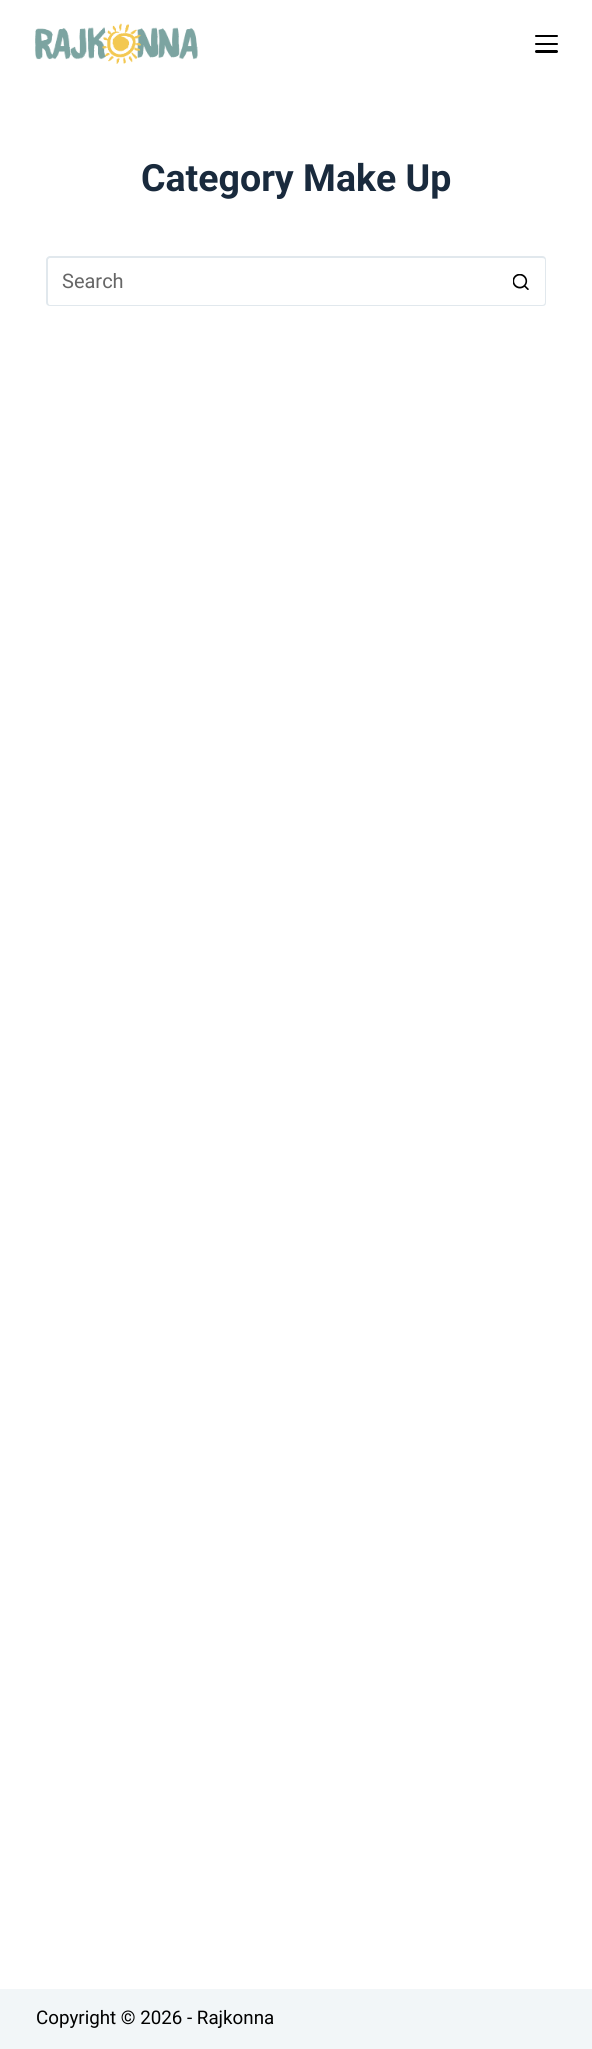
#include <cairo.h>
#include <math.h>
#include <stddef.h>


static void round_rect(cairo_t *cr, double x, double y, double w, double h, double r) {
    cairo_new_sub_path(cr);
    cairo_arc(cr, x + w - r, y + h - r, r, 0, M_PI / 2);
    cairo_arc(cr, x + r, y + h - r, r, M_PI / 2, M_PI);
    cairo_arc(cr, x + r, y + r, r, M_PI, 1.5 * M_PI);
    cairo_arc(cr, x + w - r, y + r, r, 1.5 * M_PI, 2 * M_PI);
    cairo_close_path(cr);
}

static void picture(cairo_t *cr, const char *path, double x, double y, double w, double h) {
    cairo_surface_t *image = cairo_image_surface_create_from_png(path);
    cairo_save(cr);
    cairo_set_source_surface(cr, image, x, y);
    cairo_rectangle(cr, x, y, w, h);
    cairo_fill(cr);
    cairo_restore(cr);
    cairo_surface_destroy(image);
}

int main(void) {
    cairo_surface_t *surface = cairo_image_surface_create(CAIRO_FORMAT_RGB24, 592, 2049);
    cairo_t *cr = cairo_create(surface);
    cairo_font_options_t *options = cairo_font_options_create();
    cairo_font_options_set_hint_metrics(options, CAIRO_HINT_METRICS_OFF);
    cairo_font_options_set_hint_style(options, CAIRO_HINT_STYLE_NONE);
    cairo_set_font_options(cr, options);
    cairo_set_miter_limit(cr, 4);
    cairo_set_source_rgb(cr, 1, 1, 1);
    cairo_paint(cr);
    picture(cr, "img1.png", 35, 23, 163, 41);
    cairo_set_source_rgb(cr, 0, 0, 0);
    round_rect(cr, 535, 35, 23, 2, 1);
    cairo_fill(cr);
    round_rect(cr, 535, 43, 23, 2, 1);
    cairo_fill(cr);
    round_rect(cr, 535, 50, 23, 3, 1.5);
    cairo_fill(cr);
    cairo_select_font_face(cr, "Roboto", CAIRO_FONT_SLANT_NORMAL, CAIRO_FONT_WEIGHT_BOLD);
    cairo_set_font_size(cr, 37.5);
    cairo_set_source_rgb(cr, 0.098, 0.165, 0.239);
    cairo_move_to(cr, 141, 191);
    cairo_show_text(cr, "Category Make Up");
    cairo_set_source_rgb(cr, 0.882, 0.91, 0.929);
    cairo_set_fill_rule(cr, CAIRO_FILL_RULE_EVEN_ODD);
    cairo_new_path(cr);
    cairo_move_to(cr, 50, 256);
    cairo_line_to(cr, 496, 256);
    cairo_line_to(cr, 496, 306);
    cairo_line_to(cr, 50, 306);
    cairo_curve_to(cr, 48, 306, 46, 305, 46, 302);
    cairo_line_to(cr, 46, 260);
    cairo_curve_to(cr, 46, 258, 48, 256, 50, 256);
    cairo_close_path(cr);
    cairo_move_to(cr, 50, 258);
    cairo_line_to(cr, 496, 258);
    cairo_line_to(cr, 496, 305);
    cairo_line_to(cr, 50, 305);
    cairo_curve_to(cr, 49, 305, 48, 304, 48, 302);
    cairo_line_to(cr, 48, 260);
    cairo_curve_to(cr, 48, 259, 49, 258, 50, 258);
    cairo_close_path(cr);
    cairo_fill(cr);
    cairo_select_font_face(cr, "Roboto", CAIRO_FONT_SLANT_NORMAL, CAIRO_FONT_WEIGHT_NORMAL);
    cairo_set_font_size(cr, 20);
    cairo_set_source_rgb(cr, 0.4, 0.4, 0.4);
    cairo_move_to(cr, 62, 288);
    cairo_show_text(cr, "Search");
    cairo_set_source_rgb(cr, 0.882, 0.91, 0.929);
    cairo_new_path(cr);
    cairo_move_to(cr, 496, 256);
    cairo_line_to(cr, 542, 256);
    cairo_curve_to(cr, 545, 256, 546, 258, 546, 260);
    cairo_line_to(cr, 546, 302);
    cairo_curve_to(cr, 546, 305, 545, 306, 542, 306);
    cairo_line_to(cr, 496, 306);
    cairo_close_path(cr);
    cairo_move_to(cr, 496, 258);
    cairo_line_to(cr, 542, 258);
    cairo_curve_to(cr, 544, 258, 545, 259, 545, 260);
    cairo_line_to(cr, 545, 302);
    cairo_curve_to(cr, 545, 304, 544, 305, 542, 305);
    cairo_line_to(cr, 496, 305);
    cairo_close_path(cr);
    cairo_fill(cr);
    picture(cr, "img2.png", 513, 274, 16, 16);
    cairo_set_source_rgb(cr, 0.949, 0.961, 0.969);
    cairo_rectangle(cr, 0, 1989, 592, 60);
    cairo_fill(cr);
    cairo_set_font_size(cr, 18.75);
    cairo_set_source_rgb(cr, 0, 0, 0);
    cairo_move_to(cr, 36, 2024);
    cairo_show_text(cr, "Copyright © 2026 - Rajkonna");
    cairo_surface_write_to_png(surface, "page.png");
    cairo_font_options_destroy(options);
    cairo_destroy(cr);
    cairo_surface_destroy(surface);
    return 0;
}
